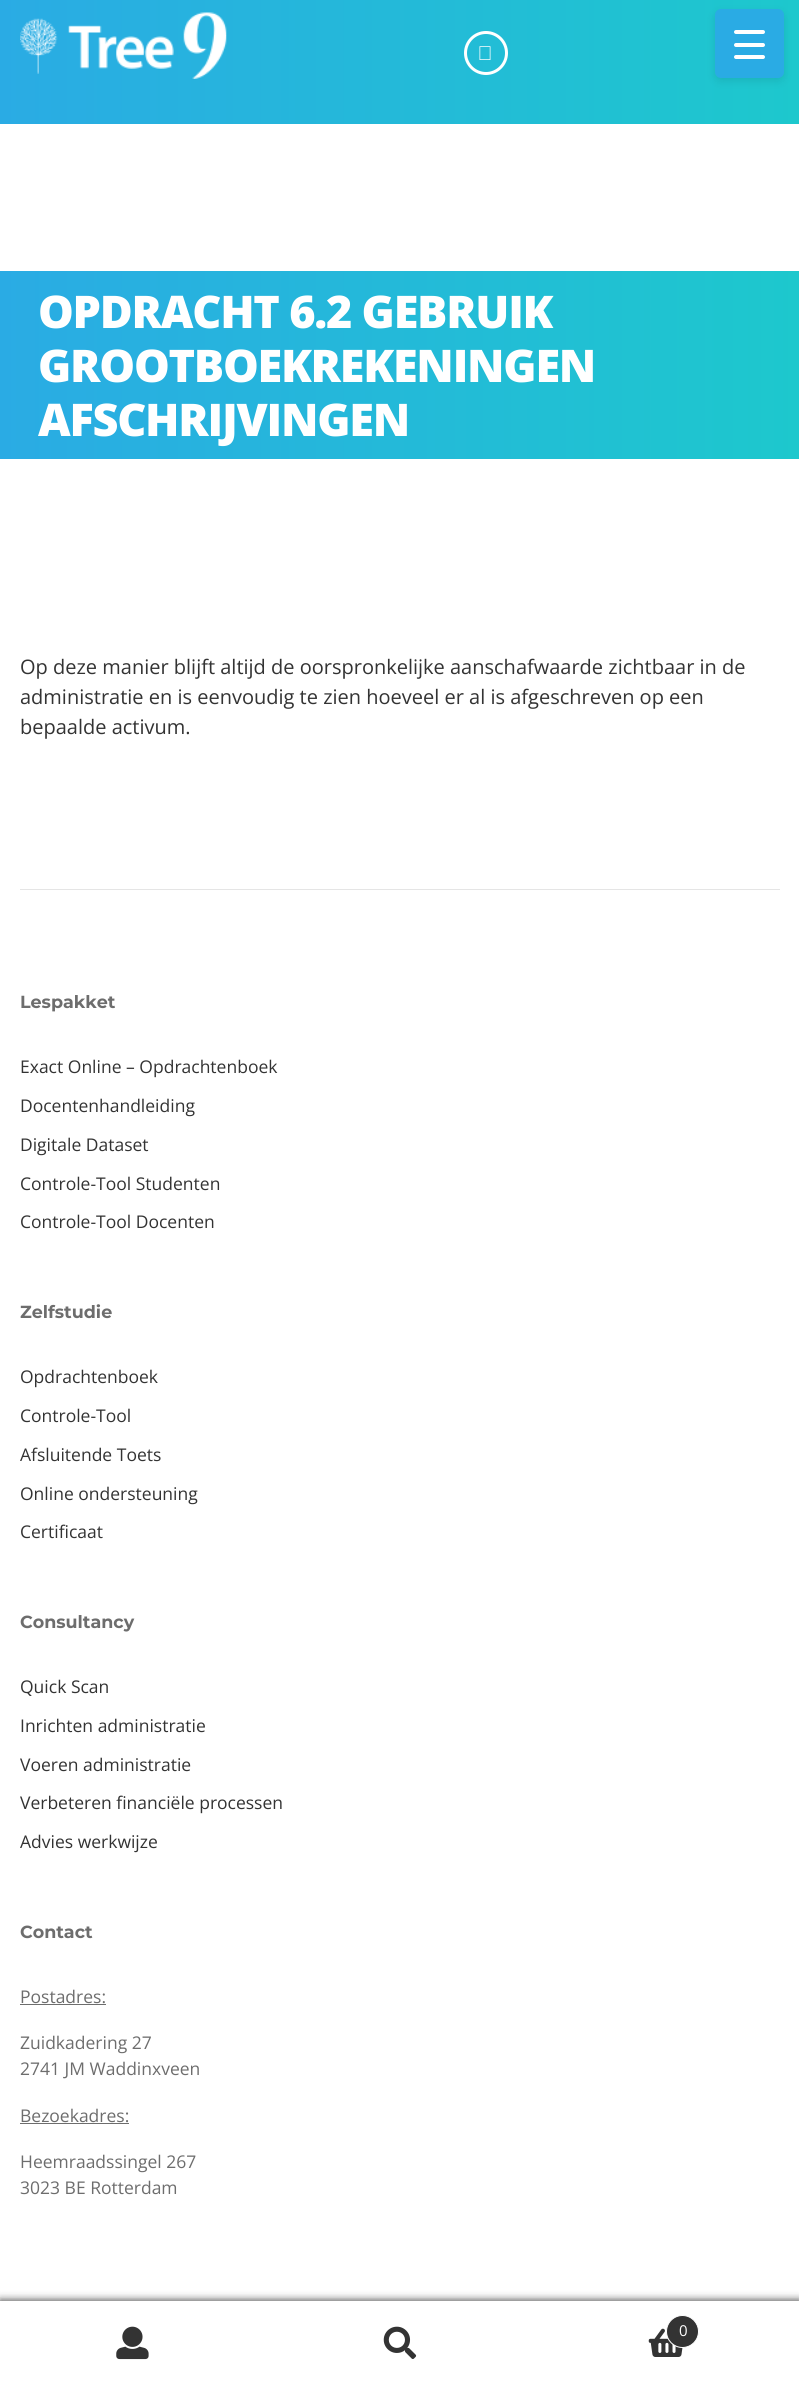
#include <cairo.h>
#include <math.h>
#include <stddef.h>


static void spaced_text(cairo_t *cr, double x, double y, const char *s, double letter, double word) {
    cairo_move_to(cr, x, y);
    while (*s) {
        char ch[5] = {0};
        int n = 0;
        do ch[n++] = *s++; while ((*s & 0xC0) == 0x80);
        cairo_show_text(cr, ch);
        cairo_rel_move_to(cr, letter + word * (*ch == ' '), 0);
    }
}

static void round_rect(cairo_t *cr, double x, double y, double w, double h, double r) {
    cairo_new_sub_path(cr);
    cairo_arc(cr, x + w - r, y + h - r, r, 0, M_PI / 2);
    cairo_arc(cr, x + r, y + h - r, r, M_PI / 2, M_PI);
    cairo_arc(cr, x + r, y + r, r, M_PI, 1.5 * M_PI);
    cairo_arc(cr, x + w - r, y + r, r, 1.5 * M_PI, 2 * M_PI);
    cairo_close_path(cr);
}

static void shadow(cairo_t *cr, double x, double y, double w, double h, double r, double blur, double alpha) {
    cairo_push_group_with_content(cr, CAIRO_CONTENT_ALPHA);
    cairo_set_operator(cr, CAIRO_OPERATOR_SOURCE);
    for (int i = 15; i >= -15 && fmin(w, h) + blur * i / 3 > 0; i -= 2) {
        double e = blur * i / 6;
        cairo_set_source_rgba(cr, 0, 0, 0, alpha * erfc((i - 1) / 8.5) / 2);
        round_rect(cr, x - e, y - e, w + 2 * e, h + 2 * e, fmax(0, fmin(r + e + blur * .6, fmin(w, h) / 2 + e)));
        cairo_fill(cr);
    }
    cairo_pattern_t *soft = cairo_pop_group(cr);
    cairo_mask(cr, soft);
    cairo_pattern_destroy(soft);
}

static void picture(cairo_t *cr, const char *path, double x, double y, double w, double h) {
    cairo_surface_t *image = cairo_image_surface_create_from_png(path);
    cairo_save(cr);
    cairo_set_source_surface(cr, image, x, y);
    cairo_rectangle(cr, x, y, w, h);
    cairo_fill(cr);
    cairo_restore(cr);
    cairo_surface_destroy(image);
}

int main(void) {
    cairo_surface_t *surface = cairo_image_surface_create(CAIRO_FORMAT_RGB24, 799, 2386);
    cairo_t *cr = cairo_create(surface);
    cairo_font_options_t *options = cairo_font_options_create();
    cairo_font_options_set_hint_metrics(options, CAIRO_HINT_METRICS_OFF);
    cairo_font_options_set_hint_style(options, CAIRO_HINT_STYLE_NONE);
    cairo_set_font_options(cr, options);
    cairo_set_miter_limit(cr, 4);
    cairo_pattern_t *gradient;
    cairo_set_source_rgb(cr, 1, 1, 1);
    cairo_paint(cr);
    gradient = cairo_pattern_create_linear(0, 62, 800, 62);
    cairo_pattern_add_color_stop_rgba(gradient, 0, 0.165, 0.671, 0.894, 1);
    cairo_pattern_add_color_stop_rgba(gradient, 1, 0.114, 0.784, 0.804, 1);
    cairo_set_source(cr, gradient);
    cairo_pattern_destroy(gradient);
    cairo_rectangle(cr, 0, 0, 799, 124);
    cairo_fill(cr);
    cairo_set_source_rgb(cr, 0, 0, 0);
    shadow(cr, 715, 13, 69, 68, 6, 4.5, 0.1);
    cairo_set_source_rgb(cr, 0.165, 0.671, 0.894);
    round_rect(cr, 715, 9, 69, 69, 6);
    cairo_fill(cr);
    cairo_set_source_rgb(cr, 1, 1, 1);
    round_rect(cr, 734, 43, 31, 4, 2);
    cairo_fill(cr);
    round_rect(cr, 734, 30, 31, 4, 2);
    cairo_fill(cr);
    round_rect(cr, 734, 55, 31, 4, 2);
    cairo_fill(cr);
    picture(cr, "img1.png", 20, 12, 207, 67);
    cairo_arc(cr, 486, 53, 20.5, 0, 2 * M_PI);
    cairo_set_line_width(cr, 3);
    cairo_stroke(cr);
    picture(cr, "img2.png", 479, 46, 12, 14);
    gradient = cairo_pattern_create_linear(0, 365, 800, 365);
    cairo_pattern_add_color_stop_rgba(gradient, 0, 0.165, 0.671, 0.894, 1);
    cairo_pattern_add_color_stop_rgba(gradient, 1, 0.114, 0.784, 0.804, 1);
    cairo_set_source(cr, gradient);
    cairo_pattern_destroy(gradient);
    cairo_rectangle(cr, 0, 271, 799, 188);
    cairo_fill(cr);
    cairo_select_font_face(cr, "Open Sans ExtraBold", CAIRO_FONT_SLANT_NORMAL, CAIRO_FONT_WEIGHT_NORMAL);
    cairo_set_font_size(cr, 45);
    cairo_set_source_rgb(cr, 1, 1, 1);
    spaced_text(cr, 38, 328, "OPDRACHT 6.2 GEBRUIK", -1.25, 0);
    spaced_text(cr, 38, 382, "GROOTBOEKREKENINGEN", -1.25, 0);
    spaced_text(cr, 38, 436, "AFSCHRIJVINGEN", -1.25, 0);
    cairo_select_font_face(cr, "Open Sans", CAIRO_FONT_SLANT_NORMAL, CAIRO_FONT_WEIGHT_NORMAL);
    cairo_set_font_size(cr, 20);
    cairo_set_source_rgb(cr, 0.2, 0.2, 0.2);
    cairo_move_to(cr, 20, 674);
    cairo_show_text(cr, "Op deze manier blijft altijd de oorspronkelijke aanschafwaarde zichtbaar in de");
    cairo_move_to(cr, 20, 704);
    cairo_show_text(cr, "administratie en is eenvoudig te zien hoeveel er al is afgeschreven op een");
    cairo_move_to(cr, 20, 734);
    cairo_show_text(cr, "bepaalde activum.");
    cairo_set_source_rgb(cr, 0.898, 0.898, 0.898);
    cairo_rectangle(cr, 20, 889, 760, 1);
    cairo_fill(cr);
    cairo_select_font_face(cr, "Montserrat", CAIRO_FONT_SLANT_NORMAL, CAIRO_FONT_WEIGHT_BOLD);
    cairo_set_font_size(cr, 17.5);
    cairo_set_source_rgb(cr, 0.427, 0.427, 0.427);
    cairo_move_to(cr, 20, 1008);
    cairo_show_text(cr, "Lespakket");
    cairo_select_font_face(cr, "Open Sans", CAIRO_FONT_SLANT_NORMAL, CAIRO_FONT_WEIGHT_NORMAL);
    cairo_set_source_rgb(cr, 0.2, 0.2, 0.2);
    cairo_move_to(cr, 20, 1073);
    cairo_show_text(cr, "Exact Online – Opdrachtenboek");
    cairo_move_to(cr, 20, 1112);
    cairo_show_text(cr, "Docentenhandleiding");
    cairo_move_to(cr, 20, 1151);
    cairo_show_text(cr, "Digitale Dataset");
    cairo_move_to(cr, 20, 1190);
    cairo_show_text(cr, "Controle-Tool Studenten");
    cairo_move_to(cr, 20, 1228);
    cairo_show_text(cr, "Controle-Tool Docenten");
    cairo_select_font_face(cr, "Montserrat", CAIRO_FONT_SLANT_NORMAL, CAIRO_FONT_WEIGHT_BOLD);
    cairo_set_source_rgb(cr, 0.427, 0.427, 0.427);
    cairo_move_to(cr, 20, 1318);
    cairo_show_text(cr, "Zelfstudie");
    cairo_select_font_face(cr, "Open Sans", CAIRO_FONT_SLANT_NORMAL, CAIRO_FONT_WEIGHT_NORMAL);
    cairo_set_source_rgb(cr, 0.2, 0.2, 0.2);
    cairo_move_to(cr, 20, 1383);
    cairo_show_text(cr, "Opdrachtenboek");
    cairo_move_to(cr, 20, 1422);
    cairo_show_text(cr, "Controle-Tool");
    cairo_move_to(cr, 20, 1461);
    cairo_show_text(cr, "Afsluitende Toets");
    cairo_move_to(cr, 20, 1500);
    cairo_show_text(cr, "Online ondersteuning");
    cairo_move_to(cr, 20, 1538);
    cairo_show_text(cr, "Certificaat");
    cairo_select_font_face(cr, "Montserrat", CAIRO_FONT_SLANT_NORMAL, CAIRO_FONT_WEIGHT_BOLD);
    cairo_set_source_rgb(cr, 0.427, 0.427, 0.427);
    cairo_move_to(cr, 20, 1628);
    cairo_show_text(cr, "Consultancy");
    cairo_select_font_face(cr, "Open Sans", CAIRO_FONT_SLANT_NORMAL, CAIRO_FONT_WEIGHT_NORMAL);
    cairo_set_source_rgb(cr, 0.2, 0.2, 0.2);
    cairo_move_to(cr, 20, 1693);
    cairo_show_text(cr, "Quick Scan");
    cairo_move_to(cr, 20, 1732);
    cairo_show_text(cr, "Inrichten administratie");
    cairo_move_to(cr, 20, 1771);
    cairo_show_text(cr, "Voeren administratie");
    cairo_move_to(cr, 20, 1809);
    cairo_show_text(cr, "Verbeteren financiële processen");
    cairo_move_to(cr, 20, 1848);
    cairo_show_text(cr, "Advies werkwijze");
    cairo_select_font_face(cr, "Montserrat", CAIRO_FONT_SLANT_NORMAL, CAIRO_FONT_WEIGHT_BOLD);
    cairo_set_source_rgb(cr, 0.427, 0.427, 0.427);
    cairo_move_to(cr, 20, 1938);
    cairo_show_text(cr, "Contact");
    cairo_select_font_face(cr, "Open Sans", CAIRO_FONT_SLANT_NORMAL, CAIRO_FONT_WEIGHT_NORMAL);
    cairo_move_to(cr, 20, 2003);
    cairo_show_text(cr, "Postadres:");
    cairo_rectangle(cr, 20, 2004, 86, 1);
    cairo_fill(cr);
    cairo_move_to(cr, 20, 2049);
    cairo_show_text(cr, "Zuidkadering 27");
    cairo_move_to(cr, 20, 2075);
    cairo_show_text(cr, "2741 JM Waddinxveen");
    cairo_move_to(cr, 20, 2122);
    cairo_show_text(cr, "Bezoekadres:");
    cairo_rectangle(cr, 20, 2123, 109, 1);
    cairo_fill(cr);
    cairo_move_to(cr, 20, 2168);
    cairo_show_text(cr, "Heemraadssingel 267");
    cairo_move_to(cr, 20, 2194);
    cairo_show_text(cr, "3023 BE Rotterdam");
    cairo_set_source_rgb(cr, 0, 0, 0);
    shadow(cr, 0, 2300, 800, 86, 0, 4, 0.7);
    cairo_set_source_rgb(cr, 1, 1, 1);
    cairo_rectangle(cr, 0, 2301, 799, 85);
    cairo_fill(cr);
    picture(cr, "img3.png", 116, 2326, 33, 34);
    picture(cr, "img4.png", 383, 2326, 34, 33);
    picture(cr, "img5.png", 648, 2328, 35, 29);
    cairo_set_source_rgb(cr, 0.2, 0.2, 0.2);
    cairo_arc(cr, 682.5, 2331.5, 16, 0, 2 * M_PI);
    cairo_fill_preserve(cr);
    cairo_set_source_rgb(cr, 1, 1, 1);
    cairo_set_line_width(cr, 1);
    cairo_stroke(cr);
    cairo_set_font_size(cr, 15);
    cairo_move_to(cr, 679, 2336);
    cairo_show_text(cr, "0");
    cairo_surface_write_to_png(surface, "page.png");
    cairo_font_options_destroy(options);
    cairo_destroy(cr);
    cairo_surface_destroy(surface);
    return 0;
}
